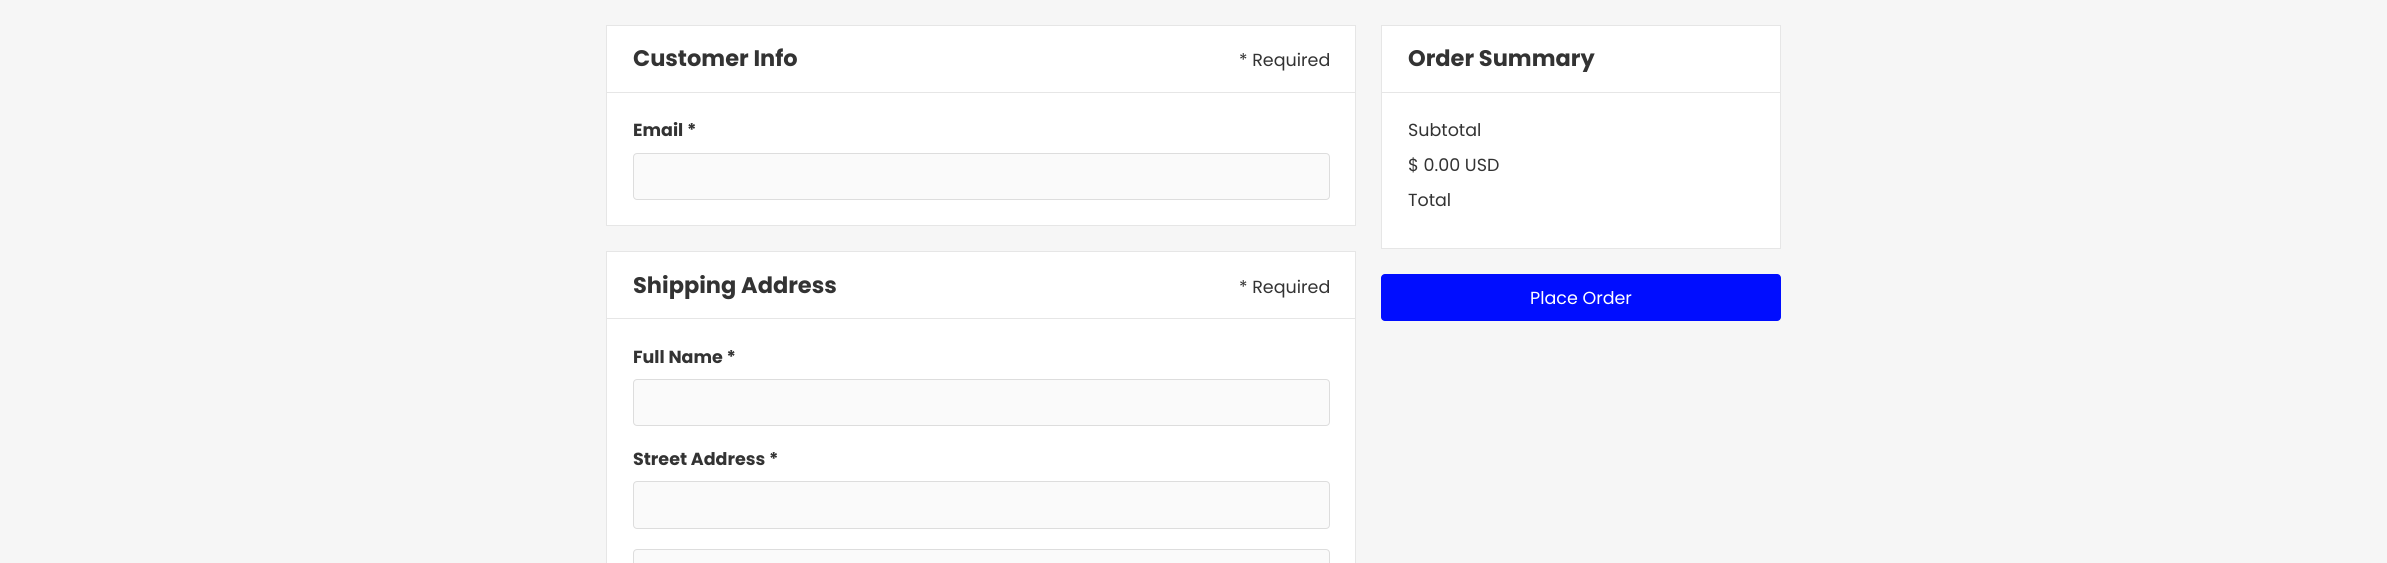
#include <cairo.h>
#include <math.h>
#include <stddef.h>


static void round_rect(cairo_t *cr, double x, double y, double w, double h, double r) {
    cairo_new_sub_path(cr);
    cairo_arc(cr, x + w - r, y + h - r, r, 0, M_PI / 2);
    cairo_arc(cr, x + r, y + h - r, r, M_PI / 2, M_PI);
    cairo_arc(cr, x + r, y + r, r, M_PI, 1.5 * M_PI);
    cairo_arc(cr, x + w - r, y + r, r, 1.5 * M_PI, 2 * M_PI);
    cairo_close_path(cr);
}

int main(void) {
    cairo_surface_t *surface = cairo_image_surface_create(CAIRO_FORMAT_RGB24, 2387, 563);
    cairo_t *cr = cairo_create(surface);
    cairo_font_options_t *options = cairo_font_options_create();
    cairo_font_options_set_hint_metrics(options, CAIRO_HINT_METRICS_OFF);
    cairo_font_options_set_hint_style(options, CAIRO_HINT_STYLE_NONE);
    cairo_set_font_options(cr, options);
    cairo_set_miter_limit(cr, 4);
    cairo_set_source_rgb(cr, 0.961, 0.961, 0.961);
    cairo_paint(cr);
    cairo_set_source_rgb(cr, 1, 1, 1);
    cairo_rectangle(cr, 606.5, 25.5, 749, 67);
    cairo_fill_preserve(cr);
    cairo_set_source_rgb(cr, 0.902, 0.902, 0.902);
    cairo_set_line_width(cr, 1);
    cairo_stroke(cr);
    cairo_select_font_face(cr, "Poppins", CAIRO_FONT_SLANT_NORMAL, CAIRO_FONT_WEIGHT_BOLD);
    cairo_set_font_size(cr, 22.5);
    cairo_set_source_rgb(cr, 0.2, 0.2, 0.2);
    cairo_move_to(cr, 633, 66);
    cairo_show_text(cr, "Customer Info");
    cairo_select_font_face(cr, "Poppins", CAIRO_FONT_SLANT_NORMAL, CAIRO_FONT_WEIGHT_NORMAL);
    cairo_set_font_size(cr, 17.5);
    cairo_move_to(cr, 1239, 66);
    cairo_show_text(cr, "* Required");
    cairo_set_source_rgb(cr, 1, 1, 1);
    cairo_rectangle(cr, 607, 93, 748, 132);
    cairo_fill(cr);
    cairo_set_source_rgb(cr, 0.902, 0.902, 0.902);
    cairo_rectangle(cr, 1355, 93, 1, 133);
    cairo_fill(cr);
    cairo_rectangle(cr, 606, 225, 750, 1);
    cairo_fill(cr);
    cairo_rectangle(cr, 606, 93, 1, 133);
    cairo_fill(cr);
    cairo_select_font_face(cr, "Poppins", CAIRO_FONT_SLANT_NORMAL, CAIRO_FONT_WEIGHT_BOLD);
    cairo_set_source_rgb(cr, 0.2, 0.2, 0.2);
    cairo_move_to(cr, 633, 136);
    cairo_show_text(cr, "Email *");
    cairo_set_source_rgb(cr, 0.98, 0.98, 0.98);
    round_rect(cr, 633.5, 153.5, 696, 46, 3.5);
    cairo_fill_preserve(cr);
    cairo_set_source_rgb(cr, 0.867, 0.867, 0.867);
    cairo_stroke(cr);
    cairo_set_source_rgb(cr, 1, 1, 1);
    cairo_rectangle(cr, 606.5, 251.5, 749, 67);
    cairo_fill_preserve(cr);
    cairo_set_source_rgb(cr, 0.902, 0.902, 0.902);
    cairo_stroke(cr);
    cairo_set_font_size(cr, 22.5);
    cairo_set_source_rgb(cr, 0.2, 0.2, 0.2);
    cairo_move_to(cr, 633, 293);
    cairo_show_text(cr, "Shipping Address");
    cairo_select_font_face(cr, "Poppins", CAIRO_FONT_SLANT_NORMAL, CAIRO_FONT_WEIGHT_NORMAL);
    cairo_set_font_size(cr, 17.5);
    cairo_move_to(cr, 1239, 293);
    cairo_show_text(cr, "* Required");
    cairo_set_source_rgb(cr, 1, 1, 1);
    cairo_rectangle(cr, 607, 319, 748, 244);
    cairo_fill(cr);
    cairo_set_source_rgb(cr, 0.902, 0.902, 0.902);
    cairo_rectangle(cr, 1355, 319, 1, 244);
    cairo_fill(cr);
    cairo_rectangle(cr, 606, 319, 1, 244);
    cairo_fill(cr);
    cairo_select_font_face(cr, "Poppins", CAIRO_FONT_SLANT_NORMAL, CAIRO_FONT_WEIGHT_BOLD);
    cairo_set_source_rgb(cr, 0.2, 0.2, 0.2);
    cairo_move_to(cr, 633, 363);
    cairo_show_text(cr, "Full Name *");
    cairo_set_source_rgb(cr, 0.98, 0.98, 0.98);
    round_rect(cr, 633.5, 379.5, 696, 46, 3.5);
    cairo_fill_preserve(cr);
    cairo_set_source_rgb(cr, 0.867, 0.867, 0.867);
    cairo_stroke(cr);
    cairo_set_source_rgb(cr, 0.2, 0.2, 0.2);
    cairo_move_to(cr, 633, 465);
    cairo_show_text(cr, "Street Address *");
    cairo_set_source_rgb(cr, 0.98, 0.98, 0.98);
    round_rect(cr, 633.5, 481.5, 696, 47, 3.5);
    cairo_fill_preserve(cr);
    cairo_set_source_rgb(cr, 0.867, 0.867, 0.867);
    cairo_stroke(cr);
    cairo_set_source_rgb(cr, 0.98, 0.98, 0.98);
    round_rect(cr, 633.5, 549.5, 696, 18, 3.5);
    cairo_fill_preserve(cr);
    cairo_set_source_rgb(cr, 0.867, 0.867, 0.867);
    cairo_stroke(cr);
    cairo_set_source_rgb(cr, 1, 1, 1);
    cairo_rectangle(cr, 1381.5, 25.5, 399, 67);
    cairo_fill_preserve(cr);
    cairo_set_source_rgb(cr, 0.902, 0.902, 0.902);
    cairo_stroke(cr);
    cairo_set_font_size(cr, 22.5);
    cairo_set_source_rgb(cr, 0.2, 0.2, 0.2);
    cairo_move_to(cr, 1408, 66);
    cairo_show_text(cr, "Order Summary");
    cairo_set_source_rgb(cr, 1, 1, 1);
    cairo_rectangle(cr, 1382, 93, 398, 155);
    cairo_fill(cr);
    cairo_set_source_rgb(cr, 0.902, 0.902, 0.902);
    cairo_rectangle(cr, 1780, 93, 1, 156);
    cairo_fill(cr);
    cairo_rectangle(cr, 1381, 248, 400, 1);
    cairo_fill(cr);
    cairo_rectangle(cr, 1381, 93, 1, 156);
    cairo_fill(cr);
    cairo_select_font_face(cr, "Poppins", CAIRO_FONT_SLANT_NORMAL, CAIRO_FONT_WEIGHT_NORMAL);
    cairo_set_font_size(cr, 17.5);
    cairo_set_source_rgb(cr, 0.2, 0.2, 0.2);
    cairo_move_to(cr, 1408, 136);
    cairo_show_text(cr, "Subtotal");
    cairo_move_to(cr, 1408, 171);
    cairo_show_text(cr, "$ 0.00 USD");
    cairo_move_to(cr, 1408, 206);
    cairo_show_text(cr, "Total");
    cairo_set_source_rgb(cr, 0, 0.051, 1);
    round_rect(cr, 1381, 274, 400, 47, 4);
    cairo_fill(cr);
    cairo_set_source_rgb(cr, 1, 1, 1);
    cairo_move_to(cr, 1530, 304);
    cairo_show_text(cr, "Place Order");
    cairo_surface_write_to_png(surface, "page.png");
    cairo_font_options_destroy(options);
    cairo_destroy(cr);
    cairo_surface_destroy(surface);
    return 0;
}
